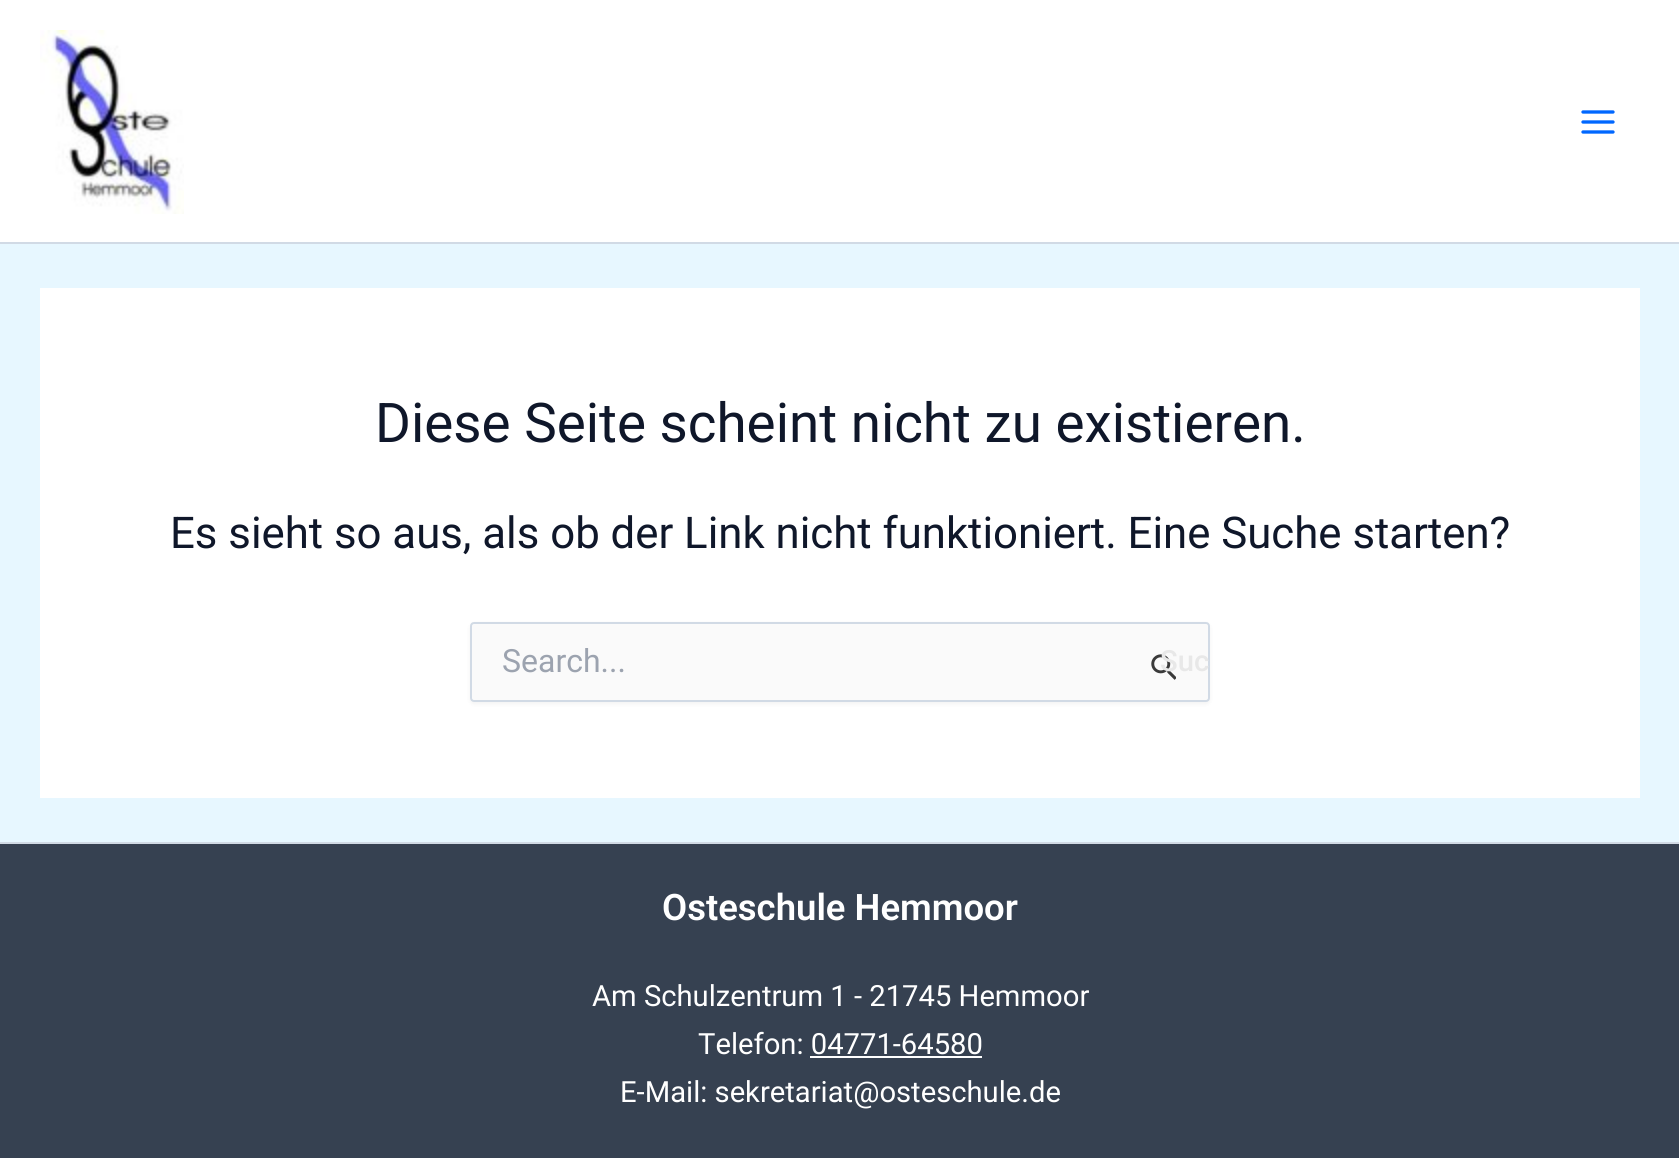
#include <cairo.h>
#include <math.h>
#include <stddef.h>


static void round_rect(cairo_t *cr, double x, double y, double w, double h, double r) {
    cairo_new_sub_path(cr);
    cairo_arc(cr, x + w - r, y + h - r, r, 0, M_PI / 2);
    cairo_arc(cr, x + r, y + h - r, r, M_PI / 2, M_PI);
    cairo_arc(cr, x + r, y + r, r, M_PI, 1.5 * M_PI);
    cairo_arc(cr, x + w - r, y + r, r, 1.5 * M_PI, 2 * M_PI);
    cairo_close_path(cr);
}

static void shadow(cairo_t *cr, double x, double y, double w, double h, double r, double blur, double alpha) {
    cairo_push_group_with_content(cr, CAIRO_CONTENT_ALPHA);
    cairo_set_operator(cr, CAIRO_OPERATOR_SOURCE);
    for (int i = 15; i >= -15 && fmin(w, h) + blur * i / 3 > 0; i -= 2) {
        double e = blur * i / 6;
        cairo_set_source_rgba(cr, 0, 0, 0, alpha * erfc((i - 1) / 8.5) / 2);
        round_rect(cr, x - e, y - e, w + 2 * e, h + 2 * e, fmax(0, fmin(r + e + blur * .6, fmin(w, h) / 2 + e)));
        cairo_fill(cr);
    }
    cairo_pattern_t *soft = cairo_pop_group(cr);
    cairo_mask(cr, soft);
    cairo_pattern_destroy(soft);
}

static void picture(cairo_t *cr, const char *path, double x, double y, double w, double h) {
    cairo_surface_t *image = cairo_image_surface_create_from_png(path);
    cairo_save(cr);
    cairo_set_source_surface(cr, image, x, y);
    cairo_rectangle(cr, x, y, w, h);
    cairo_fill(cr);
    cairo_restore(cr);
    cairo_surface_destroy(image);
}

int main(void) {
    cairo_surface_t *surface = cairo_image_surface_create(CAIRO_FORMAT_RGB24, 1679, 1158);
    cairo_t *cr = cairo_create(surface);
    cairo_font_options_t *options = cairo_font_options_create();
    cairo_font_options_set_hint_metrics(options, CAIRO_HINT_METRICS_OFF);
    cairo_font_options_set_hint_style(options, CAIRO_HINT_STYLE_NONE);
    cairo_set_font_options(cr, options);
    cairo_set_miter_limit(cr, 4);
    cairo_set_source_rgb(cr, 0.906, 0.965, 1);
    cairo_paint(cr);
    cairo_set_source_rgb(cr, 1, 1, 1);
    cairo_rectangle(cr, 0, 0, 1679, 242);
    cairo_fill(cr);
    cairo_set_source_rgb(cr, 0.82, 0.855, 0.898);
    cairo_rectangle(cr, 0, 242, 1679, 2);
    cairo_fill(cr);
    picture(cr, "img1.png", 40, 30, 144, 184);
    picture(cr, "img2.png", 1581, 110, 34, 24);
    cairo_set_source_rgb(cr, 1, 1, 1);
    cairo_rectangle(cr, 40, 288, 1600, 510);
    cairo_fill(cr);
    cairo_select_font_face(cr, "Roboto", CAIRO_FONT_SLANT_NORMAL, CAIRO_FONT_WEIGHT_NORMAL);
    cairo_set_font_size(cr, 54.75);
    cairo_set_source_rgb(cr, 0.059, 0.09, 0.165);
    cairo_move_to(cr, 375, 442);
    cairo_show_text(cr, "Diese Seite scheint nicht zu existieren.");
    cairo_set_font_size(cr, 43.75);
    cairo_move_to(cr, 170, 548);
    cairo_show_text(cr, "Es sieht so aus, als ob der Link nicht funktioniert. Eine Suche starten?");
    cairo_set_source_rgb(cr, 0, 0, 0);
    shadow(cr, 470, 624, 740, 80, 4, 2, 0.05);
    cairo_set_source_rgb(cr, 0.98, 0.98, 0.98);
    round_rect(cr, 471, 623, 738, 78, 3);
    cairo_fill_preserve(cr);
    cairo_set_source_rgb(cr, 0.82, 0.855, 0.898);
    cairo_stroke(cr);
    cairo_set_font_size(cr, 32);
    cairo_set_source_rgb(cr, 0.612, 0.639, 0.686);
    cairo_move_to(cr, 502, 672);
    cairo_show_text(cr, "Search...");
    picture(cr, "img3.png", 1151, 654, 25, 26);
    cairo_select_font_face(cr, "Roboto Medium", CAIRO_FONT_SLANT_NORMAL, CAIRO_FONT_WEIGHT_NORMAL);
    cairo_set_font_size(cr, 29.2);
    cairo_set_source_rgb(cr, 0.91, 0.91, 0.91);
    cairo_move_to(cr, 1160, 671);
    cairo_show_text(cr, "Suc");
    cairo_set_source_rgb(cr, 0.212, 0.255, 0.318);
    cairo_rectangle(cr, 0, 844, 1679, 314);
    cairo_fill(cr);
    cairo_set_source_rgb(cr, 0.82, 0.855, 0.898);
    cairo_rectangle(cr, 0, 842, 1679, 2);
    cairo_fill(cr);
    cairo_select_font_face(cr, "Roboto SemiBold", CAIRO_FONT_SLANT_NORMAL, CAIRO_FONT_WEIGHT_NORMAL);
    cairo_set_font_size(cr, 36.5);
    cairo_set_source_rgb(cr, 1, 1, 1);
    cairo_move_to(cr, 662, 920);
    cairo_show_text(cr, "Osteschule Hemmoor");
    cairo_select_font_face(cr, "Roboto", CAIRO_FONT_SLANT_NORMAL, CAIRO_FONT_WEIGHT_NORMAL);
    cairo_set_font_size(cr, 29.2);
    cairo_move_to(cr, 592, 1006);
    cairo_show_text(cr, "Am Schulzentrum 1 - 21745 Hemmoor");
    cairo_move_to(cr, 698, 1054);
    cairo_show_text(cr, "Telefon: 04771-64580");
    cairo_rectangle(cr, 810, 1056, 172, 2);
    cairo_fill(cr);
    cairo_move_to(cr, 620, 1102);
    cairo_show_text(cr, "E-Mail: sekretariat@osteschule.de");
    cairo_surface_write_to_png(surface, "page.png");
    cairo_font_options_destroy(options);
    cairo_destroy(cr);
    cairo_surface_destroy(surface);
    return 0;
}
